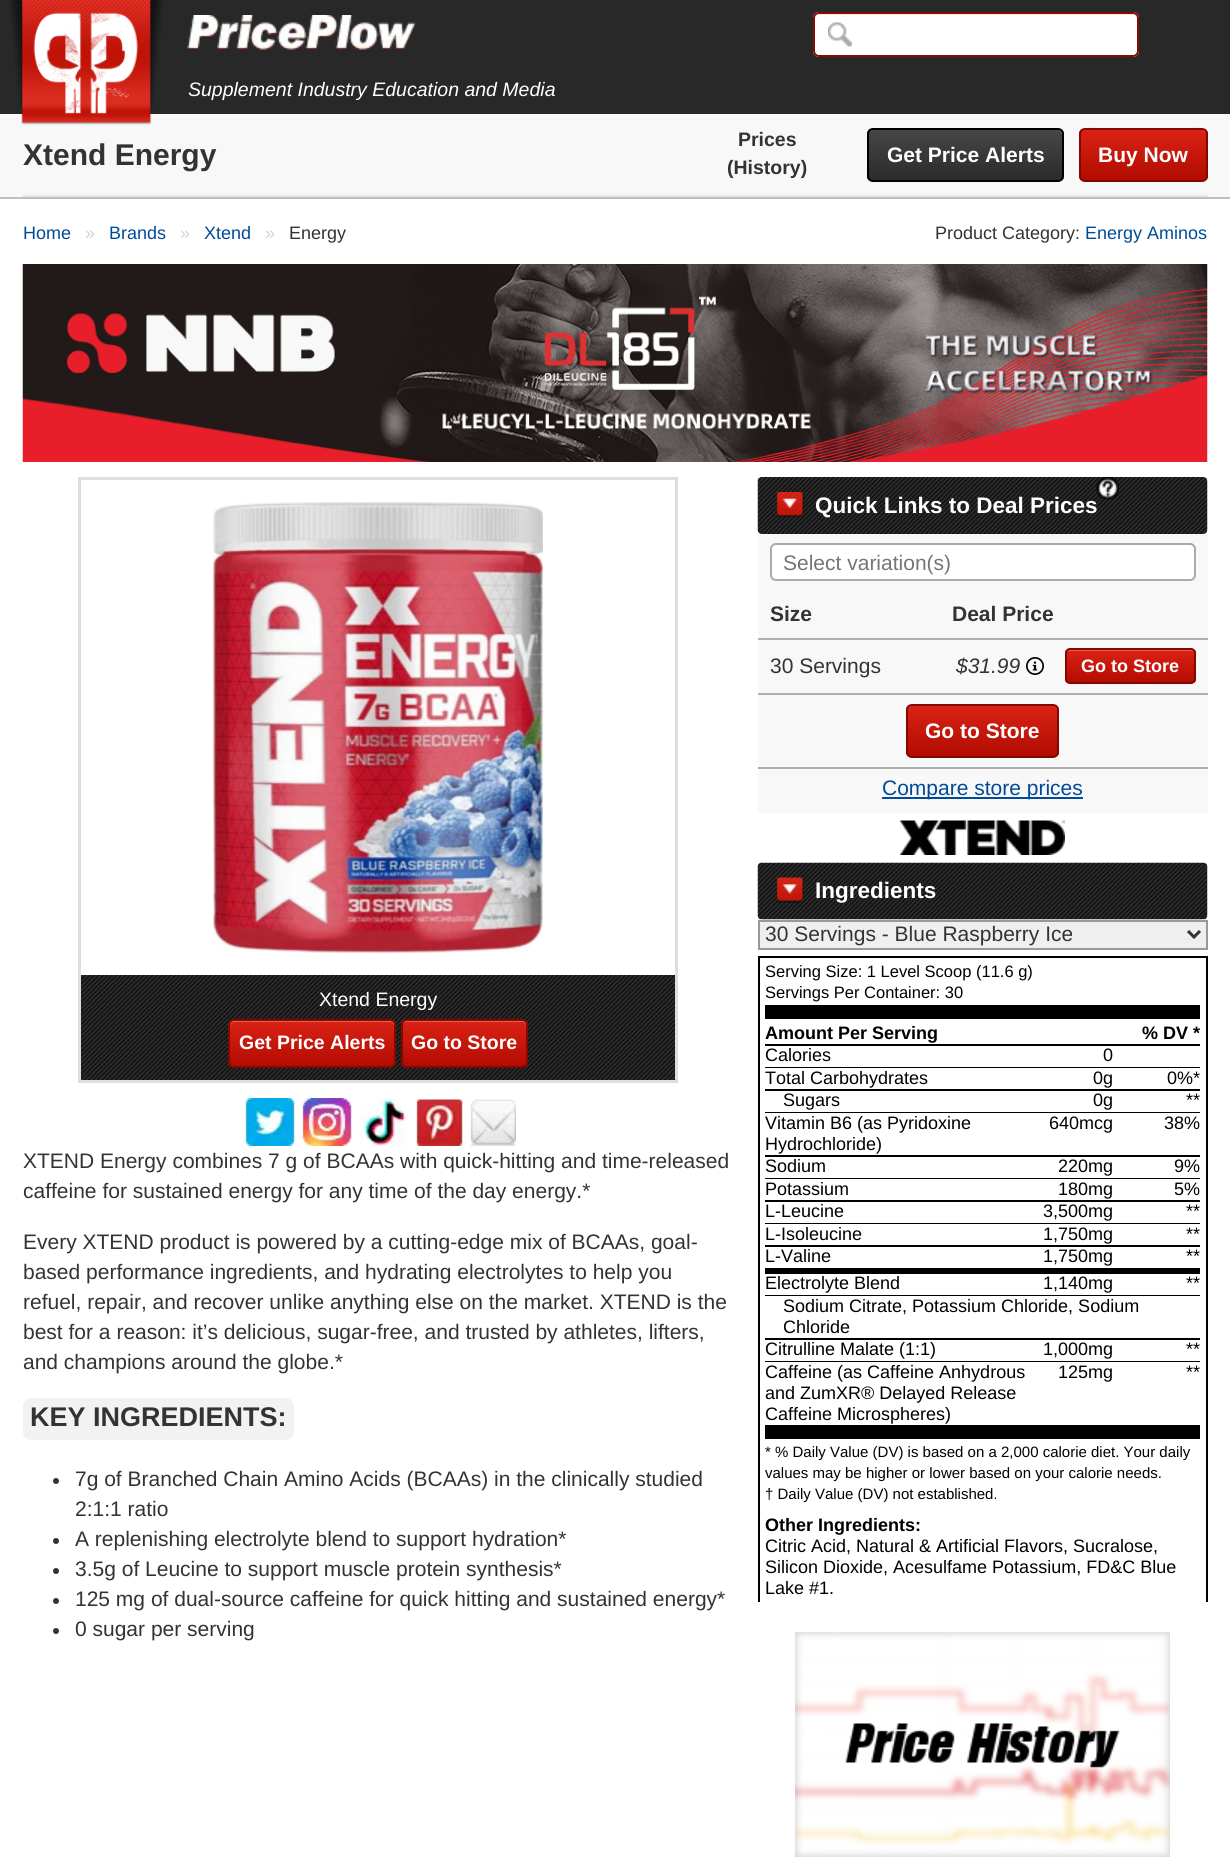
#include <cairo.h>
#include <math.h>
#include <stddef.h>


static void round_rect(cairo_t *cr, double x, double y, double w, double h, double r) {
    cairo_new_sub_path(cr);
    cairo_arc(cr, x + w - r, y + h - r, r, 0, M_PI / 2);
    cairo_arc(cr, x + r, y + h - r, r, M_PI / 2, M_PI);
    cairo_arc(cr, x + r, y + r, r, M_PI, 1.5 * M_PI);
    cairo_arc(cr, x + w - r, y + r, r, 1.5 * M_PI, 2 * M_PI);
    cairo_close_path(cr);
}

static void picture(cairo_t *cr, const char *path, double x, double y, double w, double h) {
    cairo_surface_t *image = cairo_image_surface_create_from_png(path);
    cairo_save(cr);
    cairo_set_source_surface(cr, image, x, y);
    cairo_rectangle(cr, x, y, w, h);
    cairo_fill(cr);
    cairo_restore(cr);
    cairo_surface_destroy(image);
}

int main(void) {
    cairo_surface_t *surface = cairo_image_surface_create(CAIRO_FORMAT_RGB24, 1230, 1864);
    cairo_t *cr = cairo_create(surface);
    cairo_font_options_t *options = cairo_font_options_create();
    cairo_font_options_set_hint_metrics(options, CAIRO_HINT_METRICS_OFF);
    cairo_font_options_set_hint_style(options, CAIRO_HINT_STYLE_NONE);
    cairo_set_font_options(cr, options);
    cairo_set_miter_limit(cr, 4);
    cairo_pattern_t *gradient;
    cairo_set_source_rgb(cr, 0.157, 0.157, 0.157);
    cairo_paint(cr);
    cairo_set_source_rgb(cr, 0.969, 0.969, 0.969);
    cairo_rectangle(cr, 0, 114, 1230, 83);
    cairo_fill(cr);
    picture(cr, "img1.png", 10, 0, 153, 125);
    picture(cr, "img2.png", 187, 15, 229, 35);
    cairo_set_source_rgb(cr, 1, 1, 1);
    round_rect(cr, 813, 12, 326, 45, 6);
    cairo_fill(cr);
    picture(cr, "img3.png", 828, 22, 24, 25);
    cairo_set_source_rgb(cr, 0.925, 0.925, 0.925);
    cairo_new_path(cr);
    cairo_move_to(cr, 819, 15);
    cairo_line_to(cr, 1132, 15);
    cairo_curve_to(cr, 1135, 15, 1137, 17, 1137, 20);
    cairo_line_to(cr, 1137, 19);
    cairo_curve_to(cr, 1137, 16, 1135, 14, 1132, 14);
    cairo_line_to(cr, 820, 14);
    cairo_curve_to(cr, 818, 14, 817, 15, 816, 16);
    cairo_close_path(cr);
    cairo_fill(cr);
    round_rect(cr, 814, 13, 324, 43, 5);
    cairo_set_source_rgb(cr, 0.533, 0.039, 0.008);
    cairo_stroke(cr);
    cairo_select_font_face(cr, "Liberation Sans", CAIRO_FONT_SLANT_ITALIC, CAIRO_FONT_WEIGHT_NORMAL);
    cairo_set_font_size(cr, 19.5);
    cairo_set_source_rgb(cr, 1, 1, 1);
    cairo_move_to(cr, 188, 96);
    cairo_show_text(cr, "Supplement Industry Education and Media");
    cairo_set_source_rgb(cr, 0.745, 0.745, 0.745);
    cairo_rectangle(cr, 0, 197, 1230, 2);
    cairo_fill(cr);
    cairo_set_source_rgb(cr, 0.906, 0.906, 0.906);
    cairo_rectangle(cr, 23, 195, 1185, 2);
    cairo_fill(cr);
    cairo_select_font_face(cr, "Liberation Sans", CAIRO_FONT_SLANT_NORMAL, CAIRO_FONT_WEIGHT_BOLD);
    cairo_set_font_size(cr, 30);
    cairo_set_source_rgb(cr, 0.2, 0.2, 0.2);
    cairo_move_to(cr, 23, 165);
    cairo_show_text(cr, "Xtend Energy");
    cairo_set_font_size(cr, 19.5);
    cairo_move_to(cr, 738, 146);
    cairo_show_text(cr, "Prices");
    cairo_move_to(cr, 727, 174);
    cairo_show_text(cr, "(History)");
    cairo_save(cr);
    round_rect(cr, 867, 128, 197, 54, 6);
    cairo_clip(cr);
    gradient = cairo_pattern_create_linear(965, 129, 965, 180);
    cairo_pattern_add_color_stop_rgba(gradient, 0, 0.278, 0.278, 0.278, 1);
    cairo_pattern_add_color_stop_rgba(gradient, 1, 0.169, 0.169, 0.169, 1);
    cairo_set_source(cr, gradient);
    cairo_pattern_destroy(gradient);
    cairo_rectangle(cr, 867, 129, 197, 51);
    cairo_fill(cr);
    cairo_restore(cr);
    cairo_set_source_rgb(cr, 0.6, 0.6, 0.6);
    cairo_new_path(cr);
    cairo_move_to(cr, 873, 130);
    cairo_line_to(cr, 1058, 130);
    cairo_curve_to(cr, 1060, 130, 1062, 133, 1062, 135);
    cairo_line_to(cr, 1062, 134);
    cairo_curve_to(cr, 1062, 131, 1060, 129, 1057, 129);
    cairo_line_to(cr, 874, 129);
    cairo_curve_to(cr, 872, 129, 870, 130, 869, 132);
    cairo_curve_to(cr, 870, 131, 872, 130, 873, 130);
    cairo_close_path(cr);
    cairo_fill(cr);
    round_rect(cr, 868, 129, 195, 52, 5);
    cairo_set_source_rgb(cr, 0, 0, 0);
    cairo_stroke(cr);
    cairo_set_font_size(cr, 21);
    cairo_set_source_rgb(cr, 1, 1, 1);
    cairo_move_to(cr, 887, 162);
    cairo_show_text(cr, "Get Price Alerts");
    cairo_save(cr);
    round_rect(cr, 1079, 128, 129, 54, 6);
    cairo_clip(cr);
    gradient = cairo_pattern_create_linear(1143, 129, 1143, 180);
    cairo_pattern_add_color_stop_rgba(gradient, 0, 0.859, 0.133, 0.086, 1);
    cairo_pattern_add_color_stop_rgba(gradient, 1, 0.698, 0.047, 0.004, 1);
    cairo_set_source(cr, gradient);
    cairo_pattern_destroy(gradient);
    cairo_rectangle(cr, 1079, 129, 129, 51);
    cairo_fill(cr);
    cairo_restore(cr);
    cairo_set_source_rgb(cr, 0.902, 0.376, 0.345);
    cairo_new_path(cr);
    cairo_move_to(cr, 1084, 130);
    cairo_line_to(cr, 1202, 130);
    cairo_curve_to(cr, 1204, 130, 1206, 133, 1206, 135);
    cairo_curve_to(cr, 1206, 124, 1186, 129, 1182, 129);
    cairo_line_to(cr, 1104, 129);
    cairo_curve_to(cr, 1100, 129, 1080, 124, 1080, 135);
    cairo_curve_to(cr, 1080, 133, 1082, 130, 1084, 130);
    cairo_close_path(cr);
    cairo_fill(cr);
    round_rect(cr, 1080, 129, 127, 52, 5);
    cairo_set_source_rgb(cr, 0.522, 0.035, 0);
    cairo_stroke(cr);
    cairo_set_source_rgb(cr, 1, 1, 1);
    cairo_move_to(cr, 1098, 162);
    cairo_show_text(cr, "Buy Now");
    cairo_rectangle(cr, 0, 199, 1230, 1665);
    cairo_fill(cr);
    cairo_select_font_face(cr, "Liberation Sans", CAIRO_FONT_SLANT_NORMAL, CAIRO_FONT_WEIGHT_NORMAL);
    cairo_set_font_size(cr, 18);
    cairo_set_source_rgb(cr, 0, 0.294, 0.6);
    cairo_move_to(cr, 23, 239);
    cairo_show_text(cr, "Home");
    cairo_set_source_rgb(cr, 0.824, 0.824, 0.824);
    cairo_move_to(cr, 85, 239);
    cairo_show_text(cr, "»");
    cairo_set_source_rgb(cr, 0, 0.294, 0.6);
    cairo_move_to(cr, 109, 239);
    cairo_show_text(cr, "Brands");
    cairo_set_source_rgb(cr, 0.824, 0.824, 0.824);
    cairo_move_to(cr, 180, 239);
    cairo_show_text(cr, "»");
    cairo_set_source_rgb(cr, 0, 0.294, 0.6);
    cairo_move_to(cr, 204, 239);
    cairo_show_text(cr, "Xtend");
    cairo_set_source_rgb(cr, 0.824, 0.824, 0.824);
    cairo_move_to(cr, 265, 239);
    cairo_show_text(cr, "»");
    cairo_set_source_rgb(cr, 0.2, 0.2, 0.2);
    cairo_move_to(cr, 289, 239);
    cairo_show_text(cr, "Energy");
    cairo_move_to(cr, 935, 239);
    cairo_show_text(cr, "Product Category:");
    cairo_set_source_rgb(cr, 0, 0.294, 0.6);
    cairo_move_to(cr, 1085, 239);
    cairo_show_text(cr, "Energy Aminos");
    picture(cr, "img4.png", 22, 264, 1186, 198);
    picture(cr, "img5.png", 757, 477, 451, 57);
    cairo_select_font_face(cr, "Liberation Sans", CAIRO_FONT_SLANT_NORMAL, CAIRO_FONT_WEIGHT_BOLD);
    cairo_set_font_size(cr, 22.5);
    cairo_set_source_rgb(cr, 1, 1, 1);
    cairo_move_to(cr, 815, 513);
    cairo_show_text(cr, "Quick Links to Deal Prices");
    picture(cr, "img6.png", 1096, 477, 23, 23);
    picture(cr, "img7.png", 776, 492, 28, 25);
    cairo_set_source_rgb(cr, 0.969, 0.969, 0.969);
    cairo_rectangle(cr, 758, 534, 450, 279);
    cairo_fill(cr);
    cairo_set_source_rgb(cr, 1, 1, 1);
    round_rect(cr, 771, 544, 424, 36, 5);
    cairo_fill_preserve(cr);
    cairo_set_source_rgb(cr, 0.667, 0.667, 0.667);
    cairo_stroke(cr);
    cairo_select_font_face(cr, "Liberation Sans", CAIRO_FONT_SLANT_NORMAL, CAIRO_FONT_WEIGHT_NORMAL);
    cairo_set_font_size(cr, 21);
    cairo_set_source_rgb(cr, 0.459, 0.459, 0.459);
    cairo_move_to(cr, 783, 570);
    cairo_show_text(cr, "Select variation(s)");
    cairo_select_font_face(cr, "Liberation Sans", CAIRO_FONT_SLANT_NORMAL, CAIRO_FONT_WEIGHT_BOLD);
    cairo_set_source_rgb(cr, 0.2, 0.2, 0.2);
    cairo_move_to(cr, 770, 621);
    cairo_show_text(cr, "Size");
    cairo_move_to(cr, 952, 621);
    cairo_show_text(cr, "Deal Price");
    cairo_set_source_rgb(cr, 0.686, 0.686, 0.686);
    cairo_rectangle(cr, 758, 638, 450, 2);
    cairo_fill(cr);
    cairo_select_font_face(cr, "Liberation Sans", CAIRO_FONT_SLANT_NORMAL, CAIRO_FONT_WEIGHT_NORMAL);
    cairo_set_source_rgb(cr, 0.2, 0.2, 0.2);
    cairo_move_to(cr, 770, 673);
    cairo_show_text(cr, "30 Servings");
    cairo_select_font_face(cr, "Liberation Sans", CAIRO_FONT_SLANT_ITALIC, CAIRO_FONT_WEIGHT_NORMAL);
    cairo_move_to(cr, 956, 673);
    cairo_show_text(cr, "$31.99");
    picture(cr, "img8.png", 1026, 657, 18, 18);
    cairo_save(cr);
    round_rect(cr, 1065, 648, 131, 36, 5);
    cairo_clip(cr);
    gradient = cairo_pattern_create_linear(1130, 650, 1130, 683);
    cairo_pattern_add_color_stop_rgba(gradient, 0, 0.859, 0.133, 0.086, 1);
    cairo_pattern_add_color_stop_rgba(gradient, 1, 0.698, 0.047, 0.004, 1);
    cairo_set_source(cr, gradient);
    cairo_pattern_destroy(gradient);
    cairo_rectangle(cr, 1065, 650, 131, 33);
    cairo_fill(cr);
    cairo_restore(cr);
    cairo_set_source_rgb(cr, 0.902, 0.376, 0.345);
    cairo_new_path(cr);
    cairo_move_to(cr, 1070, 651);
    cairo_line_to(cr, 1191, 651);
    cairo_curve_to(cr, 1193, 651, 1194, 652, 1194, 654);
    cairo_curve_to(cr, 1194, 652, 1193, 650, 1191, 650);
    cairo_line_to(cr, 1070, 650);
    cairo_curve_to(cr, 1069, 650, 1068, 651, 1067, 652);
    cairo_close_path(cr);
    cairo_fill(cr);
    round_rect(cr, 1066, 649, 129, 34, 4);
    cairo_set_source_rgb(cr, 0.522, 0.035, 0);
    cairo_stroke(cr);
    cairo_select_font_face(cr, "Liberation Sans", CAIRO_FONT_SLANT_NORMAL, CAIRO_FONT_WEIGHT_BOLD);
    cairo_set_font_size(cr, 18);
    cairo_set_source_rgb(cr, 1, 1, 1);
    cairo_move_to(cr, 1081, 672);
    cairo_show_text(cr, "Go to Store");
    cairo_set_source_rgb(cr, 0.686, 0.686, 0.686);
    cairo_rectangle(cr, 758, 693, 450, 2);
    cairo_fill(cr);
    cairo_save(cr);
    round_rect(cr, 906, 704, 153, 54, 6);
    cairo_clip(cr);
    gradient = cairo_pattern_create_linear(983, 705, 983, 756);
    cairo_pattern_add_color_stop_rgba(gradient, 0, 0.859, 0.133, 0.086, 1);
    cairo_pattern_add_color_stop_rgba(gradient, 1, 0.698, 0.047, 0.004, 1);
    cairo_set_source(cr, gradient);
    cairo_pattern_destroy(gradient);
    cairo_rectangle(cr, 906, 705, 153, 51);
    cairo_fill(cr);
    cairo_restore(cr);
    cairo_set_source_rgb(cr, 0.902, 0.376, 0.345);
    cairo_new_path(cr);
    cairo_move_to(cr, 912, 706);
    cairo_line_to(cr, 1053, 706);
    cairo_curve_to(cr, 1055, 706, 1058, 709, 1058, 711);
    cairo_line_to(cr, 1058, 710);
    cairo_curve_to(cr, 1058, 707, 1056, 705, 1053, 705);
    cairo_line_to(cr, 913, 705);
    cairo_curve_to(cr, 910, 705, 908, 707, 908, 710);
    cairo_line_to(cr, 908, 711);
    cairo_curve_to(cr, 908, 709, 910, 706, 912, 706);
    cairo_close_path(cr);
    cairo_fill(cr);
    round_rect(cr, 907, 705, 151, 52, 5);
    cairo_set_source_rgb(cr, 0.522, 0.035, 0);
    cairo_stroke(cr);
    cairo_set_font_size(cr, 21);
    cairo_set_source_rgb(cr, 1, 1, 1);
    cairo_move_to(cr, 925, 738);
    cairo_show_text(cr, "Go to Store");
    cairo_set_source_rgb(cr, 0.686, 0.686, 0.686);
    cairo_rectangle(cr, 758, 767, 450, 2);
    cairo_fill(cr);
    cairo_set_source_rgb(cr, 0, 0.294, 0.6);
    cairo_rectangle(cr, 882, 797, 201, 2);
    cairo_fill(cr);
    cairo_select_font_face(cr, "Liberation Sans", CAIRO_FONT_SLANT_NORMAL, CAIRO_FONT_WEIGHT_NORMAL);
    cairo_move_to(cr, 882, 795);
    cairo_show_text(cr, "Compare store prices");
    picture(cr, "img9.png", 900, 820, 165, 35);
    cairo_rectangle(cr, 79.5, 478.5, 597, 603);
    cairo_set_source_rgb(cr, 0.871, 0.871, 0.871);
    cairo_set_line_width(cr, 3);
    cairo_stroke(cr);
    picture(cr, "img10.png", 213, 502, 330, 451);
    picture(cr, "img11.png", 81, 975, 594, 105);
    cairo_set_font_size(cr, 19.5);
    cairo_set_source_rgb(cr, 1, 1, 1);
    cairo_move_to(cr, 319, 1006);
    cairo_show_text(cr, "Xtend Energy");
    cairo_save(cr);
    round_rect(cr, 228, 1019, 168, 49, 6);
    cairo_clip(cr);
    gradient = cairo_pattern_create_linear(312, 1020, 312, 1067);
    cairo_pattern_add_color_stop_rgba(gradient, 0, 0.859, 0.133, 0.086, 1);
    cairo_pattern_add_color_stop_rgba(gradient, 1, 0.698, 0.047, 0.004, 1);
    cairo_set_source(cr, gradient);
    cairo_pattern_destroy(gradient);
    cairo_rectangle(cr, 228, 1020, 168, 47);
    cairo_fill(cr);
    cairo_restore(cr);
    cairo_set_source_rgb(cr, 0.902, 0.376, 0.345);
    cairo_new_path(cr);
    cairo_move_to(cr, 234, 1022);
    cairo_line_to(cr, 390, 1022);
    cairo_curve_to(cr, 392, 1022, 394, 1024, 394, 1026);
    cairo_line_to(cr, 394, 1065);
    cairo_curve_to(cr, 395, 1064, 395, 1063, 395, 1062);
    cairo_line_to(cr, 395, 1025);
    cairo_curve_to(cr, 395, 1022, 393, 1020, 390, 1020);
    cairo_line_to(cr, 235, 1020);
    cairo_curve_to(cr, 232, 1020, 230, 1022, 230, 1025);
    cairo_line_to(cr, 230, 1026);
    cairo_curve_to(cr, 230, 1024, 232, 1022, 234, 1022);
    cairo_close_path(cr);
    cairo_fill(cr);
    round_rect(cr, 229, 1020, 166, 47, 5);
    cairo_set_source_rgb(cr, 0.522, 0.035, 0);
    cairo_set_line_width(cr, 2);
    cairo_stroke(cr);
    cairo_select_font_face(cr, "Liberation Sans", CAIRO_FONT_SLANT_NORMAL, CAIRO_FONT_WEIGHT_BOLD);
    cairo_set_source_rgb(cr, 1, 1, 1);
    cairo_move_to(cr, 239, 1049);
    cairo_show_text(cr, "Get Price Alerts");
    cairo_save(cr);
    round_rect(cr, 401, 1019, 127, 49, 6);
    cairo_clip(cr);
    gradient = cairo_pattern_create_linear(464, 1020, 464, 1067);
    cairo_pattern_add_color_stop_rgba(gradient, 0, 0.859, 0.133, 0.086, 1);
    cairo_pattern_add_color_stop_rgba(gradient, 1, 0.698, 0.047, 0.004, 1);
    cairo_set_source(cr, gradient);
    cairo_pattern_destroy(gradient);
    cairo_rectangle(cr, 401, 1020, 127, 47);
    cairo_fill(cr);
    cairo_restore(cr);
    cairo_set_source_rgb(cr, 0.902, 0.376, 0.345);
    cairo_new_path(cr);
    cairo_move_to(cr, 406, 1022);
    cairo_line_to(cr, 522, 1022);
    cairo_curve_to(cr, 527, 1022, 526, 1030, 526, 1032);
    cairo_line_to(cr, 526, 1065);
    cairo_curve_to(cr, 527, 1064, 527, 1063, 527, 1062);
    cairo_line_to(cr, 527, 1025);
    cairo_curve_to(cr, 527, 1022, 525, 1020, 522, 1020);
    cairo_line_to(cr, 407, 1020);
    cairo_curve_to(cr, 404, 1020, 402, 1022, 402, 1025);
    cairo_line_to(cr, 402, 1026);
    cairo_curve_to(cr, 402, 1024, 404, 1022, 406, 1022);
    cairo_close_path(cr);
    cairo_fill(cr);
    round_rect(cr, 402, 1020, 125, 47, 5);
    cairo_set_source_rgb(cr, 0.522, 0.035, 0);
    cairo_stroke(cr);
    cairo_set_source_rgb(cr, 1, 1, 1);
    cairo_move_to(cr, 411, 1049);
    cairo_show_text(cr, "Go to Store");
    picture(cr, "img12.png", 245, 1098, 271, 48);
    cairo_select_font_face(cr, "Liberation Sans", CAIRO_FONT_SLANT_NORMAL, CAIRO_FONT_WEIGHT_NORMAL);
    cairo_set_font_size(cr, 21);
    cairo_set_source_rgb(cr, 0.2, 0.2, 0.2);
    cairo_move_to(cr, 23, 1168);
    cairo_show_text(cr, "XTEND Energy combines 7 g of BCAAs with quick-hitting and time-released");
    cairo_move_to(cr, 23, 1198);
    cairo_show_text(cr, "caffeine for sustained energy for any time of the day energy.*");
    cairo_move_to(cr, 23, 1249);
    cairo_show_text(cr, "Every XTEND product is powered by a cutting-edge mix of BCAAs, goal-");
    cairo_move_to(cr, 23, 1279);
    cairo_show_text(cr, "based performance ingredients, and hydrating electrolytes to help you");
    cairo_move_to(cr, 23, 1309);
    cairo_show_text(cr, "refuel, repair, and recover unlike anything else on the market. XTEND is the");
    cairo_move_to(cr, 23, 1339);
    cairo_show_text(cr, "best for a reason: it’s delicious, sugar-free, and trusted by athletes, lifters,");
    cairo_move_to(cr, 23, 1369);
    cairo_show_text(cr, "and champions around the globe.*");
    cairo_set_source_rgb(cr, 0.949, 0.949, 0.949);
    round_rect(cr, 23, 1398, 271, 42, 8);
    cairo_fill(cr);
    cairo_select_font_face(cr, "Liberation Sans", CAIRO_FONT_SLANT_NORMAL, CAIRO_FONT_WEIGHT_BOLD);
    cairo_set_font_size(cr, 27);
    cairo_set_source_rgb(cr, 0.2, 0.2, 0.2);
    cairo_move_to(cr, 30, 1426);
    cairo_show_text(cr, "KEY INGREDIENTS:");
    cairo_new_path(cr);
    cairo_arc(cr, 56, 1481, 3, 0, 2 * M_PI);
    cairo_fill(cr);
    cairo_select_font_face(cr, "Liberation Sans", CAIRO_FONT_SLANT_NORMAL, CAIRO_FONT_WEIGHT_NORMAL);
    cairo_set_font_size(cr, 21);
    cairo_move_to(cr, 75, 1486);
    cairo_show_text(cr, "7g of Branched Chain Amino Acids (BCAAs) in the clinically studied");
    cairo_move_to(cr, 75, 1516);
    cairo_show_text(cr, "2:1:1 ratio");
    cairo_new_path(cr);
    cairo_arc(cr, 56, 1541, 3, 0, 2 * M_PI);
    cairo_fill(cr);
    cairo_move_to(cr, 75, 1546);
    cairo_show_text(cr, "A replenishing electrolyte blend to support hydration*");
    cairo_new_path(cr);
    cairo_arc(cr, 56, 1571, 3, 0, 2 * M_PI);
    cairo_fill(cr);
    cairo_move_to(cr, 75, 1576);
    cairo_show_text(cr, "3.5g of Leucine to support muscle protein synthesis*");
    cairo_new_path(cr);
    cairo_arc(cr, 56, 1601, 3, 0, 2 * M_PI);
    cairo_fill(cr);
    cairo_move_to(cr, 75, 1606);
    cairo_show_text(cr, "125 mg of dual-source caffeine for quick hitting and sustained energy*");
    cairo_new_path(cr);
    cairo_arc(cr, 56, 1631, 3, 0, 2 * M_PI);
    cairo_fill(cr);
    cairo_move_to(cr, 75, 1636);
    cairo_show_text(cr, "0 sugar per serving");
    picture(cr, "img13.png", 757, 862, 451, 58);
    picture(cr, "img14.png", 776, 877, 28, 26);
    cairo_select_font_face(cr, "Liberation Sans", CAIRO_FONT_SLANT_NORMAL, CAIRO_FONT_WEIGHT_BOLD);
    cairo_set_font_size(cr, 22.5);
    cairo_set_source_rgb(cr, 1, 1, 1);
    cairo_move_to(cr, 815, 898);
    cairo_show_text(cr, "Ingredients");
    cairo_set_source_rgb(cr, 0.937, 0.937, 0.937);
    cairo_rectangle(cr, 759, 921, 448, 28);
    cairo_fill_preserve(cr);
    cairo_set_source_rgb(cr, 0.6, 0.6, 0.6);
    cairo_stroke(cr);
    cairo_new_path(cr);
    cairo_move_to(cr, 1188, 931);
    cairo_line_to(cr, 1194, 937);
    cairo_line_to(cr, 1200, 931);
    cairo_set_source_rgb(cr, 0.2, 0.2, 0.2);
    cairo_set_line_width(cr, 3);
    cairo_stroke(cr);
    cairo_select_font_face(cr, "Liberation Sans", CAIRO_FONT_SLANT_NORMAL, CAIRO_FONT_WEIGHT_NORMAL);
    cairo_set_font_size(cr, 21);
    cairo_move_to(cr, 765, 941);
    cairo_show_text(cr, "30 Servings - Blue Raspberry Ice");
    picture(cr, "img15.png", 795, 1632, 375, 225);
    cairo_save(cr);
    cairo_rectangle(cr, 758, 956, 450, 646);
    cairo_clip(cr);
    cairo_rectangle(cr, 759, 957, 448, 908);
    cairo_set_source_rgb(cr, 0, 0, 0);
    cairo_set_line_width(cr, 2);
    cairo_stroke(cr);
    cairo_restore(cr);
    cairo_set_font_size(cr, 16.5);
    cairo_set_source_rgb(cr, 0, 0, 0);
    cairo_move_to(cr, 765, 977);
    cairo_show_text(cr, "Serving Size: 1 Level Scoop (11.6 g)");
    cairo_move_to(cr, 765, 998);
    cairo_show_text(cr, "Servings Per Container: 30");
    cairo_rectangle(cr, 765, 1005, 435, 14);
    cairo_fill(cr);
    cairo_select_font_face(cr, "Liberation Sans", CAIRO_FONT_SLANT_NORMAL, CAIRO_FONT_WEIGHT_BOLD);
    cairo_set_font_size(cr, 18);
    cairo_move_to(cr, 765, 1039);
    cairo_show_text(cr, "Amount Per Serving");
    cairo_move_to(cr, 1142, 1039);
    cairo_show_text(cr, "% DV *");
    cairo_rectangle(cr, 765, 1044, 435, 2);
    cairo_fill(cr);
    cairo_select_font_face(cr, "Liberation Sans", CAIRO_FONT_SLANT_NORMAL, CAIRO_FONT_WEIGHT_NORMAL);
    cairo_move_to(cr, 765, 1061);
    cairo_show_text(cr, "Calories");
    cairo_move_to(cr, 1103, 1061);
    cairo_show_text(cr, "0");
    cairo_rectangle(cr, 765, 1067, 435, 1);
    cairo_fill(cr);
    cairo_move_to(cr, 765, 1084);
    cairo_show_text(cr, "Total Carbohydrates");
    cairo_move_to(cr, 1093, 1084);
    cairo_show_text(cr, "0g");
    cairo_move_to(cr, 1167, 1084);
    cairo_show_text(cr, "0%*");
    cairo_rectangle(cr, 765, 1089, 435, 2);
    cairo_fill(cr);
    cairo_move_to(cr, 783, 1106);
    cairo_show_text(cr, "Sugars");
    cairo_move_to(cr, 1093, 1106);
    cairo_show_text(cr, "0g");
    cairo_move_to(cr, 1186, 1106);
    cairo_show_text(cr, "**");
    cairo_rectangle(cr, 765, 1112, 435, 1);
    cairo_fill(cr);
    cairo_move_to(cr, 765, 1129);
    cairo_show_text(cr, "Vitamin B6 (as Pyridoxine");
    cairo_move_to(cr, 765, 1150);
    cairo_show_text(cr, "Hydrochloride)");
    cairo_move_to(cr, 1049, 1129);
    cairo_show_text(cr, "640mcg");
    cairo_move_to(cr, 1164, 1129);
    cairo_show_text(cr, "38%");
    cairo_rectangle(cr, 765, 1155, 435, 2);
    cairo_fill(cr);
    cairo_move_to(cr, 765, 1172);
    cairo_show_text(cr, "Sodium");
    cairo_move_to(cr, 1058, 1172);
    cairo_show_text(cr, "220mg");
    cairo_move_to(cr, 1174, 1172);
    cairo_show_text(cr, "9%");
    cairo_rectangle(cr, 765, 1178, 435, 1);
    cairo_fill(cr);
    cairo_move_to(cr, 765, 1195);
    cairo_show_text(cr, "Potassium");
    cairo_move_to(cr, 1058, 1195);
    cairo_show_text(cr, "180mg");
    cairo_move_to(cr, 1174, 1195);
    cairo_show_text(cr, "5%");
    cairo_rectangle(cr, 765, 1200, 435, 2);
    cairo_fill(cr);
    cairo_move_to(cr, 765, 1217);
    cairo_show_text(cr, "L-Leucine");
    cairo_move_to(cr, 1043, 1217);
    cairo_show_text(cr, "3,500mg");
    cairo_move_to(cr, 1186, 1217);
    cairo_show_text(cr, "**");
    cairo_rectangle(cr, 765, 1223, 435, 1);
    cairo_fill(cr);
    cairo_move_to(cr, 765, 1240);
    cairo_show_text(cr, "L-Isoleucine");
    cairo_move_to(cr, 1043, 1240);
    cairo_show_text(cr, "1,750mg");
    cairo_move_to(cr, 1186, 1240);
    cairo_show_text(cr, "**");
    cairo_rectangle(cr, 765, 1245, 435, 2);
    cairo_fill(cr);
    cairo_move_to(cr, 765, 1262);
    cairo_show_text(cr, "L-Valine");
    cairo_move_to(cr, 1043, 1262);
    cairo_show_text(cr, "1,750mg");
    cairo_move_to(cr, 1186, 1262);
    cairo_show_text(cr, "**");
    cairo_rectangle(cr, 765, 1268, 435, 6);
    cairo_fill(cr);
    cairo_move_to(cr, 765, 1289);
    cairo_show_text(cr, "Electrolyte Blend");
    cairo_move_to(cr, 1043, 1289);
    cairo_show_text(cr, "1,140mg");
    cairo_move_to(cr, 1186, 1289);
    cairo_show_text(cr, "**");
    cairo_rectangle(cr, 765, 1295, 435, 1);
    cairo_fill(cr);
    cairo_move_to(cr, 783, 1312);
    cairo_show_text(cr, "Sodium Citrate, Potassium Chloride, Sodium");
    cairo_move_to(cr, 783, 1333);
    cairo_show_text(cr, "Chloride");
    cairo_rectangle(cr, 765, 1338, 435, 2);
    cairo_fill(cr);
    cairo_move_to(cr, 765, 1355);
    cairo_show_text(cr, "Citrulline Malate (1:1)");
    cairo_move_to(cr, 1043, 1355);
    cairo_show_text(cr, "1,000mg");
    cairo_move_to(cr, 1186, 1355);
    cairo_show_text(cr, "**");
    cairo_rectangle(cr, 765, 1361, 435, 1);
    cairo_fill(cr);
    cairo_move_to(cr, 765, 1378);
    cairo_show_text(cr, "Caffeine (as Caffeine Anhydrous");
    cairo_move_to(cr, 765, 1399);
    cairo_show_text(cr, "and ZumXR® Delayed Release");
    cairo_move_to(cr, 765, 1420);
    cairo_show_text(cr, "Caffeine Microspheres)");
    cairo_move_to(cr, 1058, 1378);
    cairo_show_text(cr, "125mg");
    cairo_move_to(cr, 1186, 1378);
    cairo_show_text(cr, "**");
    cairo_rectangle(cr, 765, 1425, 435, 14);
    cairo_fill(cr);
    cairo_set_font_size(cr, 15);
    cairo_move_to(cr, 765, 1457);
    cairo_show_text(cr, "* % Daily Value (DV) is based on a 2,000 calorie diet. Your daily");
    cairo_move_to(cr, 765, 1478);
    cairo_show_text(cr, "values may be higher or lower based on your calorie needs.");
    cairo_move_to(cr, 765, 1499);
    cairo_show_text(cr, "† Daily Value (DV) not established.");
    cairo_select_font_face(cr, "Liberation Sans", CAIRO_FONT_SLANT_NORMAL, CAIRO_FONT_WEIGHT_BOLD);
    cairo_set_font_size(cr, 18);
    cairo_move_to(cr, 765, 1531);
    cairo_show_text(cr, "Other Ingredients:");
    cairo_select_font_face(cr, "Liberation Sans", CAIRO_FONT_SLANT_NORMAL, CAIRO_FONT_WEIGHT_NORMAL);
    cairo_move_to(cr, 765, 1552);
    cairo_show_text(cr, "Citric Acid, Natural & Artificial Flavors, Sucralose,");
    cairo_move_to(cr, 765, 1573);
    cairo_show_text(cr, "Silicon Dioxide, Acesulfame Potassium, FD&C Blue");
    cairo_move_to(cr, 765, 1594);
    cairo_show_text(cr, "Lake #1.");
    cairo_surface_write_to_png(surface, "page.png");
    cairo_font_options_destroy(options);
    cairo_destroy(cr);
    cairo_surface_destroy(surface);
    return 0;
}
